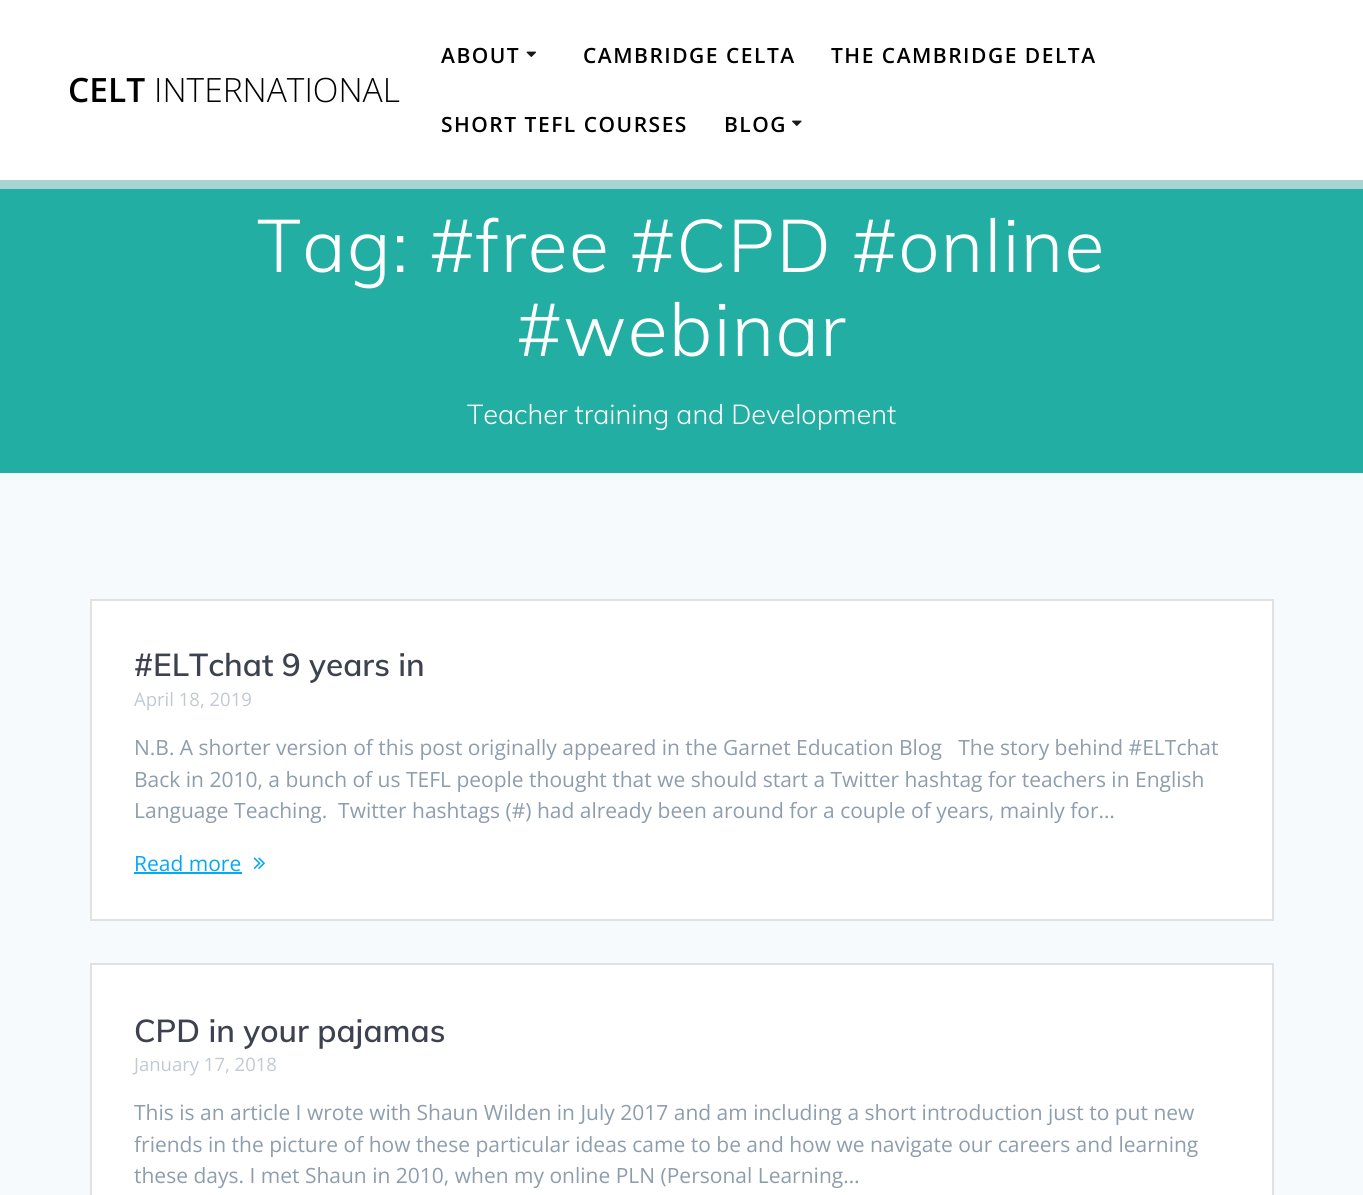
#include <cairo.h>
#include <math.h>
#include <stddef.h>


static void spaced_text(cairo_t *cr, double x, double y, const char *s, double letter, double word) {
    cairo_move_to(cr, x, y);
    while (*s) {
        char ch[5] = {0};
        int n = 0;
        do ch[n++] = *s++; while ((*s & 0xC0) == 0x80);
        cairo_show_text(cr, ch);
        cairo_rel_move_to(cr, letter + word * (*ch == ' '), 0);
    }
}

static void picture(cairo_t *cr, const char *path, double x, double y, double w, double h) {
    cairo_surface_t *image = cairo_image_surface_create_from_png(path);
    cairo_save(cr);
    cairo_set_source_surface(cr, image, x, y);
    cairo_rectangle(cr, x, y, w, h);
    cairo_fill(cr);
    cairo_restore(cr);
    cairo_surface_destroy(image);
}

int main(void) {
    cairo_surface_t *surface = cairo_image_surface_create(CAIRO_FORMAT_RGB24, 1363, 1195);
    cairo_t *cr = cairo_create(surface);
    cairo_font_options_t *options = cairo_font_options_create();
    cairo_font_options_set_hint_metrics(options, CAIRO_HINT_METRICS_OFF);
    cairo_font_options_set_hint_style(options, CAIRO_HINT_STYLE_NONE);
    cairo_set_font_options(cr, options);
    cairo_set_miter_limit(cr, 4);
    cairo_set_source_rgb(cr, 0.133, 0.682, 0.639);
    cairo_paint(cr);
    cairo_set_source_rgb(cr, 1, 1, 1);
    cairo_rectangle(cr, 0, 0, 1363, 180);
    cairo_fill(cr);
    cairo_set_source_rgb(cr, 0.663, 0.827, 0.827);
    cairo_rectangle(cr, 0, 180, 1363, 9);
    cairo_fill(cr);
    cairo_select_font_face(cr, "Open Sans SemiBold", CAIRO_FONT_SLANT_NORMAL, CAIRO_FONT_WEIGHT_NORMAL);
    cairo_set_font_size(cr, 33.5);
    cairo_set_source_rgb(cr, 0, 0, 0);
    cairo_move_to(cr, 68, 102);
    cairo_show_text(cr, "CELT");
    cairo_select_font_face(cr, "Open Sans Light", CAIRO_FONT_SLANT_NORMAL, CAIRO_FONT_WEIGHT_NORMAL);
    cairo_move_to(cr, 154, 102);
    cairo_show_text(cr, "INTERNATIONAL");
    cairo_select_font_face(cr, "Open Sans SemiBold", CAIRO_FONT_SLANT_NORMAL, CAIRO_FONT_WEIGHT_NORMAL);
    cairo_set_font_size(cr, 21);
    spaced_text(cr, 441, 63, "ABOUT", 1.5, 0);
    picture(cr, "img1.png", 526, 51, 10, 6);
    spaced_text(cr, 583, 63, "CAMBRIDGE CELTA", 1.5, 0);
    spaced_text(cr, 831, 63, "THE CAMBRIDGE DELTA", 1.5, 0);
    spaced_text(cr, 441, 132, "SHORT TEFL COURSES", 1.5, 0);
    spaced_text(cr, 724, 132, "BLOG", 1.5, 0);
    picture(cr, "img2.png", 792, 120, 10, 6);
    cairo_select_font_face(cr, "Muli Light", CAIRO_FONT_SLANT_NORMAL, CAIRO_FONT_WEIGHT_NORMAL);
    cairo_set_font_size(cr, 73.5);
    cairo_set_source_rgb(cr, 1, 1, 1);
    spaced_text(cr, 257, 272, "Tag: #free #CPD #online", 1.35, 0);
    spaced_text(cr, 517, 356, "#webinar", 1.35, 0);
    cairo_set_font_size(cr, 27.25);
    cairo_move_to(cr, 467, 424);
    cairo_show_text(cr, "Teacher training and Development");
    cairo_set_source_rgb(cr, 0.961, 0.98, 0.992);
    cairo_rectangle(cr, 0, 473, 1363, 722);
    cairo_fill(cr);
    cairo_set_source_rgb(cr, 1, 1, 1);
    cairo_rectangle(cr, 91, 600, 1182, 320);
    cairo_fill_preserve(cr);
    cairo_set_source_rgb(cr, 0.878, 0.882, 0.882);
    cairo_stroke(cr);
    cairo_select_font_face(cr, "Muli SemiBold", CAIRO_FONT_SLANT_NORMAL, CAIRO_FONT_WEIGHT_NORMAL);
    cairo_set_font_size(cr, 31.5);
    cairo_set_source_rgb(cr, 0.235, 0.259, 0.31);
    cairo_move_to(cr, 134, 676);
    cairo_show_text(cr, "#ELTchat 9 years in");
    cairo_select_font_face(cr, "Open Sans", CAIRO_FONT_SLANT_NORMAL, CAIRO_FONT_WEIGHT_NORMAL);
    cairo_set_font_size(cr, 18.5);
    cairo_set_source_rgb(cr, 0.757, 0.788, 0.824);
    cairo_move_to(cr, 134, 706);
    cairo_show_text(cr, "April 18, 2019");
    cairo_set_font_size(cr, 21);
    cairo_set_source_rgb(cr, 0.557, 0.616, 0.682);
    cairo_move_to(cr, 134, 755);
    cairo_show_text(cr, "N.B. A shorter version of this post originally appeared in the Garnet Education Blog   The story behind #ELTchat");
    cairo_move_to(cr, 134, 787);
    cairo_show_text(cr, "Back in 2010, a bunch of us TEFL people thought that we should start a Twitter hashtag for teachers in English");
    cairo_move_to(cr, 134, 818);
    cairo_show_text(cr, "Language Teaching.  Twitter hashtags (#) had already been around for a couple of years, mainly for…");
    cairo_set_source_rgb(cr, 0.012, 0.663, 0.957);
    cairo_move_to(cr, 134, 871);
    cairo_show_text(cr, "Read more");
    cairo_rectangle(cr, 134, 872, 108, 2);
    cairo_fill(cr);
    picture(cr, "img3.png", 253, 857, 12, 12);
    cairo_set_source_rgb(cr, 1, 1, 1);
    cairo_rectangle(cr, 91, 964, 1182, 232);
    cairo_fill_preserve(cr);
    cairo_set_source_rgb(cr, 0.878, 0.882, 0.882);
    cairo_stroke(cr);
    cairo_select_font_face(cr, "Muli SemiBold", CAIRO_FONT_SLANT_NORMAL, CAIRO_FONT_WEIGHT_NORMAL);
    cairo_set_font_size(cr, 31.5);
    cairo_set_source_rgb(cr, 0.235, 0.259, 0.31);
    cairo_move_to(cr, 134, 1042);
    cairo_show_text(cr, "CPD in your pajamas");
    cairo_select_font_face(cr, "Open Sans", CAIRO_FONT_SLANT_NORMAL, CAIRO_FONT_WEIGHT_NORMAL);
    cairo_set_font_size(cr, 18.5);
    cairo_set_source_rgb(cr, 0.757, 0.788, 0.824);
    cairo_move_to(cr, 134, 1071);
    cairo_show_text(cr, "January 17, 2018");
    cairo_set_font_size(cr, 21);
    cairo_set_source_rgb(cr, 0.557, 0.616, 0.682);
    cairo_move_to(cr, 134, 1120);
    cairo_show_text(cr, "This is an article I wrote with Shaun Wilden in July 2017 and am including a short introduction just to put new");
    cairo_move_to(cr, 134, 1152);
    cairo_show_text(cr, "friends in the picture of how these particular ideas came to be and how we navigate our careers and learning");
    cairo_move_to(cr, 134, 1183);
    cairo_show_text(cr, "these days. I met Shaun in 2010, when my online PLN (Personal Learning…");
    cairo_surface_write_to_png(surface, "page.png");
    cairo_font_options_destroy(options);
    cairo_destroy(cr);
    cairo_surface_destroy(surface);
    return 0;
}
